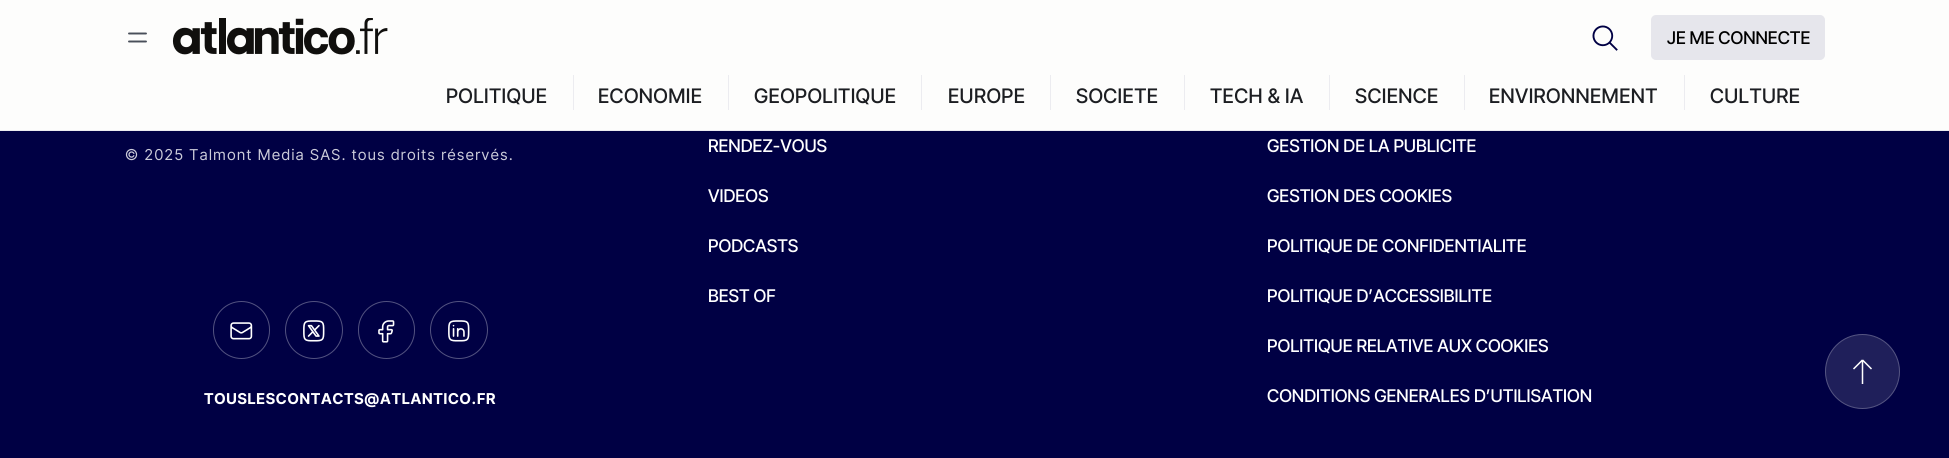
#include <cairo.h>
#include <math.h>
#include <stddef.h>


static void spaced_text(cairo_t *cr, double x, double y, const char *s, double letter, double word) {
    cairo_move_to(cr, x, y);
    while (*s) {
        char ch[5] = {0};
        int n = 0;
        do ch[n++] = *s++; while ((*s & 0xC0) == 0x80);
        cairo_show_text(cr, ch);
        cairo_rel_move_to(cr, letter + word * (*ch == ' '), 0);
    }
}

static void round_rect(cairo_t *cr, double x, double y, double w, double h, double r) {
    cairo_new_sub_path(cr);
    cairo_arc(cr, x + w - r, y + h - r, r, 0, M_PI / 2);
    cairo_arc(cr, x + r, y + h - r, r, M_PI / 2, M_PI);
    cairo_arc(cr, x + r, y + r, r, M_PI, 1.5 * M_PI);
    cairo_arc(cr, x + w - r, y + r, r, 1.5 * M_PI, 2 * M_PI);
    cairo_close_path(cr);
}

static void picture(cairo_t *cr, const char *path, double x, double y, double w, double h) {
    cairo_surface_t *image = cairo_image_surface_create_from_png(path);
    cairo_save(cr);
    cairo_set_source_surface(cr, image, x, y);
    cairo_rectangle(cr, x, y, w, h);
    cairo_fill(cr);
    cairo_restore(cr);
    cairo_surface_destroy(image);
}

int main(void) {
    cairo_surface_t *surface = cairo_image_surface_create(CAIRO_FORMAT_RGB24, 1949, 458);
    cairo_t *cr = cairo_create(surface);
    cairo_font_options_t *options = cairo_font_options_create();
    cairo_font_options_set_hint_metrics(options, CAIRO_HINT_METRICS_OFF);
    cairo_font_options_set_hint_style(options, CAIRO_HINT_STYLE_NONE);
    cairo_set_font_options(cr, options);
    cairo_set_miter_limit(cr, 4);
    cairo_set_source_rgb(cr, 0, 0, 0.267);
    cairo_paint(cr);
    cairo_set_source_rgb(cr, 0.992, 0.992, 0.988);
    cairo_rectangle(cr, 0, 0, 1949, 130);
    cairo_fill(cr);
    cairo_set_source_rgb(cr, 0.922, 0.922, 0.941);
    cairo_rectangle(cr, 0, 130, 1949, 1);
    cairo_fill(cr);
    cairo_new_path(cr);
    cairo_move_to(cr, 129, 33.5);
    cairo_line_to(cr, 146, 33.5);
    cairo_move_to(cr, 129, 41.5);
    cairo_line_to(cr, 146, 41.5);
    cairo_set_source_rgb(cr, 0.286, 0.31, 0.353);
    cairo_set_line_width(cr, 1.9);
    cairo_set_line_cap(cr, CAIRO_LINE_CAP_ROUND);
    cairo_set_line_join(cr, CAIRO_LINE_JOIN_ROUND);
    cairo_stroke(cr);
    picture(cr, "img1.png", 172, 18, 216, 37);
    picture(cr, "img2.png", 1592, 25, 26, 26);
    cairo_set_source_rgb(cr, 0.902, 0.902, 0.925);
    round_rect(cr, 1651, 15, 174, 45, 5);
    cairo_fill(cr);
    cairo_select_font_face(cr, "Inter Tight Medium", CAIRO_FONT_SLANT_NORMAL, CAIRO_FONT_WEIGHT_NORMAL);
    cairo_set_font_size(cr, 17.5);
    cairo_set_source_rgb(cr, 0, 0, 0);
    cairo_move_to(cr, 1667, 44);
    cairo_show_text(cr, "JE ME CONNECTE");
    cairo_set_source_rgb(cr, 0.922, 0.922, 0.941);
    cairo_rectangle(cr, 573, 75, 1, 35);
    cairo_fill(cr);
    cairo_set_font_size(cr, 20);
    cairo_set_source_rgb(cr, 0.11, 0.118, 0.133);
    spaced_text(cr, 446, 103, "POLITIQUE", 0.4, 0);
    cairo_set_source_rgb(cr, 0.922, 0.922, 0.941);
    cairo_rectangle(cr, 728, 75, 1, 35);
    cairo_fill(cr);
    cairo_set_source_rgb(cr, 0.11, 0.118, 0.133);
    spaced_text(cr, 598, 103, "ECONOMIE", 0.4, 0);
    cairo_set_source_rgb(cr, 0.922, 0.922, 0.941);
    cairo_rectangle(cr, 921, 75, 1, 35);
    cairo_fill(cr);
    cairo_set_source_rgb(cr, 0.11, 0.118, 0.133);
    spaced_text(cr, 754, 103, "GEOPOLITIQUE", 0.4, 0);
    cairo_set_source_rgb(cr, 0.922, 0.922, 0.941);
    cairo_rectangle(cr, 1050, 75, 1, 35);
    cairo_fill(cr);
    cairo_set_source_rgb(cr, 0.11, 0.118, 0.133);
    spaced_text(cr, 948, 103, "EUROPE", 0.4, 0);
    cairo_set_source_rgb(cr, 0.922, 0.922, 0.941);
    cairo_rectangle(cr, 1184, 75, 1, 35);
    cairo_fill(cr);
    cairo_set_source_rgb(cr, 0.11, 0.118, 0.133);
    spaced_text(cr, 1076, 103, "SOCIETE", 0.4, 0);
    cairo_set_source_rgb(cr, 0.922, 0.922, 0.941);
    cairo_rectangle(cr, 1329, 75, 1, 35);
    cairo_fill(cr);
    cairo_set_source_rgb(cr, 0.11, 0.118, 0.133);
    spaced_text(cr, 1210, 103, "TECH & IA", 0.4, 0);
    cairo_set_source_rgb(cr, 0.922, 0.922, 0.941);
    cairo_rectangle(cr, 1464, 75, 1, 35);
    cairo_fill(cr);
    cairo_set_source_rgb(cr, 0.11, 0.118, 0.133);
    spaced_text(cr, 1355, 103, "SCIENCE", 0.4, 0);
    cairo_set_source_rgb(cr, 0.922, 0.922, 0.941);
    cairo_rectangle(cr, 1684, 75, 1, 35);
    cairo_fill(cr);
    cairo_set_source_rgb(cr, 0.11, 0.118, 0.133);
    spaced_text(cr, 1489, 103, "ENVIRONNEMENT", 0.4, 0);
    spaced_text(cr, 1710, 103, "CULTURE", 0.4, 0);
    cairo_select_font_face(cr, "Inter Tight", CAIRO_FONT_SLANT_NORMAL, CAIRO_FONT_WEIGHT_NORMAL);
    cairo_set_font_size(cr, 15);
    cairo_set_source_rgb(cr, 0.8, 0.8, 0.855);
    spaced_text(cr, 125, 160, "© 2025 Talmont Media SAS. tous droits réservés.", 1.5, 0);
    round_rect(cr, 213.5, 301.5, 56, 57, 28);
    cairo_set_source_rgb(cr, 0.322, 0.322, 0.502);
    cairo_set_line_width(cr, 1);
    cairo_set_line_cap(cr, CAIRO_LINE_CAP_BUTT);
    cairo_set_line_join(cr, CAIRO_LINE_JOIN_MITER);
    cairo_stroke(cr);
    picture(cr, "img3.png", 230, 322, 23, 18);
    cairo_arc(cr, 314, 330, 28.5, 0, 2 * M_PI);
    cairo_stroke(cr);
    picture(cr, "img4.png", 303, 320, 22, 22);
    round_rect(cr, 358.5, 301.5, 56, 57, 28);
    cairo_stroke(cr);
    picture(cr, "img5.png", 378, 320, 17, 23);
    cairo_arc(cr, 459, 330, 28.5, 0, 2 * M_PI);
    cairo_stroke(cr);
    picture(cr, "img6.png", 448, 320, 22, 22);
    cairo_select_font_face(cr, "Inter Tight", CAIRO_FONT_SLANT_NORMAL, CAIRO_FONT_WEIGHT_BOLD);
    cairo_set_source_rgb(cr, 1, 1, 1);
    spaced_text(cr, 204, 404, "TOUSLESCONTACTS@ATLANTICO.FR", 0.75, 0);
    cairo_select_font_face(cr, "Inter Tight Medium", CAIRO_FONT_SLANT_NORMAL, CAIRO_FONT_WEIGHT_NORMAL);
    cairo_set_font_size(cr, 17.5);
    cairo_move_to(cr, 708, 152);
    cairo_show_text(cr, "RENDEZ-VOUS");
    cairo_move_to(cr, 708, 202);
    cairo_show_text(cr, "VIDEOS");
    cairo_move_to(cr, 708, 252);
    cairo_show_text(cr, "PODCASTS");
    cairo_move_to(cr, 708, 302);
    cairo_show_text(cr, "BEST OF");
    cairo_move_to(cr, 1267, 152);
    cairo_show_text(cr, "GESTION DE LA PUBLICITE");
    cairo_move_to(cr, 1267, 202);
    cairo_show_text(cr, "GESTION DES COOKIES");
    cairo_move_to(cr, 1267, 252);
    cairo_show_text(cr, "POLITIQUE DE CONFIDENTIALITE");
    cairo_move_to(cr, 1267, 302);
    cairo_show_text(cr, "POLITIQUE D’ACCESSIBILITE");
    cairo_move_to(cr, 1267, 352);
    cairo_show_text(cr, "POLITIQUE RELATIVE AUX COOKIES");
    cairo_move_to(cr, 1267, 402);
    cairo_show_text(cr, "CONDITIONS GENERALES D’UTILISATION");
    cairo_set_source_rgb(cr, 0.122, 0.122, 0.353);
    cairo_new_path(cr);
    cairo_arc(cr, 1862.5, 371.5, 37, 0, 2 * M_PI);
    cairo_fill_preserve(cr);
    cairo_set_source_rgb(cr, 0.333, 0.333, 0.51);
    cairo_stroke(cr);
    cairo_new_path(cr);
    cairo_move_to(cr, 1862.5, 360);
    cairo_line_to(cr, 1862.5, 384);
    cairo_move_to(cr, 1862.5, 360);
    cairo_line_to(cr, 1853.5, 369);
    cairo_move_to(cr, 1862.5, 360);
    cairo_line_to(cr, 1871.5, 369);
    cairo_set_source_rgb(cr, 1, 1, 1);
    cairo_set_line_width(cr, 1.5);
    cairo_stroke(cr);
    cairo_surface_write_to_png(surface, "page.png");
    cairo_font_options_destroy(options);
    cairo_destroy(cr);
    cairo_surface_destroy(surface);
    return 0;
}
